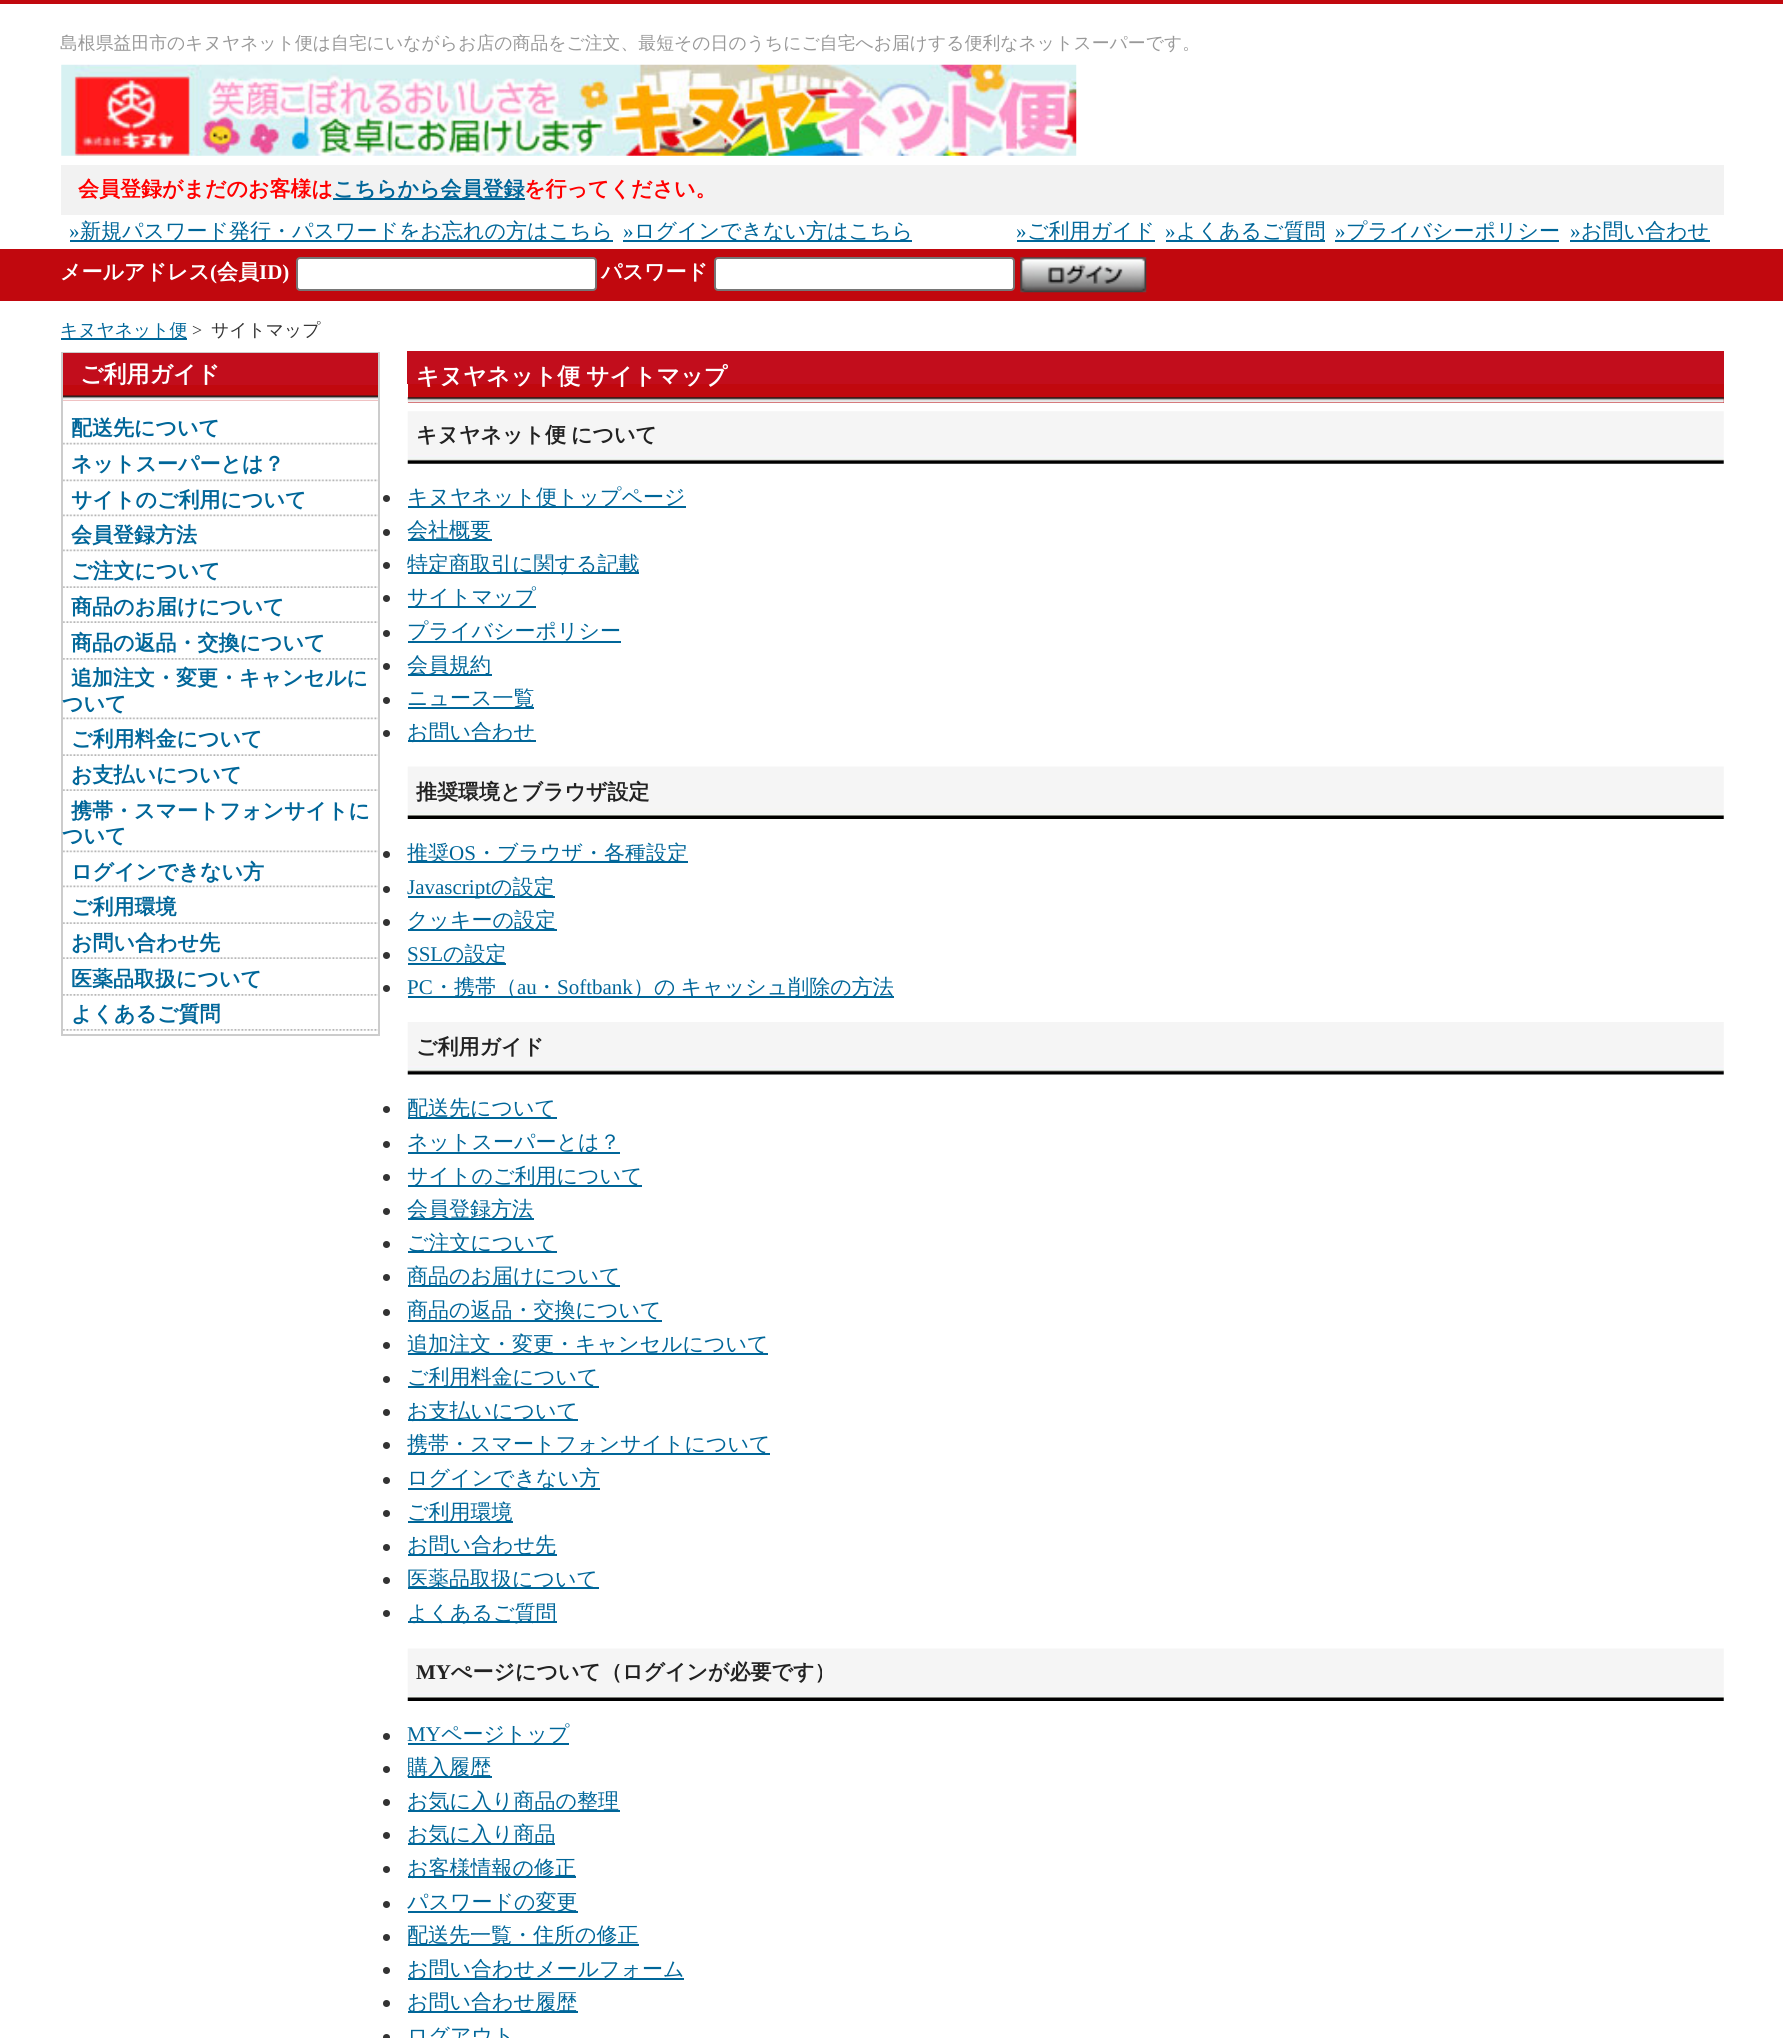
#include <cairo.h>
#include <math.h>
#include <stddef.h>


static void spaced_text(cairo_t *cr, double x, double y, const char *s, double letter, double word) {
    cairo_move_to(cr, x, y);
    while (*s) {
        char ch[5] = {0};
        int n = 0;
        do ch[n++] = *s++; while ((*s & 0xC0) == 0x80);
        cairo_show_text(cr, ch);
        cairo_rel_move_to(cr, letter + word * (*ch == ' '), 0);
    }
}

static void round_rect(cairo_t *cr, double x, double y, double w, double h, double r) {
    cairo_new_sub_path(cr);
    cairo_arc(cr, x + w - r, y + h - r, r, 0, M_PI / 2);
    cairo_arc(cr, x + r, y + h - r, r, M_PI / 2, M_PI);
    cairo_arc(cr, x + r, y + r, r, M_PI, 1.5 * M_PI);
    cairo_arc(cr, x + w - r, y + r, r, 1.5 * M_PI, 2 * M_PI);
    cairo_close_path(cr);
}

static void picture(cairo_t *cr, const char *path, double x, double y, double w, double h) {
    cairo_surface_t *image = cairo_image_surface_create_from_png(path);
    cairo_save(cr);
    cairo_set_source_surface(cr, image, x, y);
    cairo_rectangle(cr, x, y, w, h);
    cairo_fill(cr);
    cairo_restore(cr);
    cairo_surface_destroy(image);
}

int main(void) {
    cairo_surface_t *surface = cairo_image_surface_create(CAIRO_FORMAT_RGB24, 1783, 2038);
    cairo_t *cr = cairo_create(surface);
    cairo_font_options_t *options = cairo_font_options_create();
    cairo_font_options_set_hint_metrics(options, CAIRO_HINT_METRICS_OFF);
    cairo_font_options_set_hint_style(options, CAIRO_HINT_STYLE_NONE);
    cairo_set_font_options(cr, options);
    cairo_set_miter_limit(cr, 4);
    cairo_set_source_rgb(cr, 1, 1, 1);
    cairo_paint(cr);
    cairo_set_source_rgb(cr, 0.757, 0.035, 0.055);
    cairo_rectangle(cr, 0, 0, 1783, 4);
    cairo_fill(cr);
    cairo_select_font_face(cr, "WenQuanYi Zen Hei Medium", CAIRO_FONT_SLANT_NORMAL, CAIRO_FONT_WEIGHT_NORMAL);
    cairo_set_font_size(cr, 17.85);
    cairo_set_source_rgb(cr, 0.6, 0.6, 0.6);
    cairo_move_to(cr, 60, 49);
    cairo_show_text(cr, "島根県益田市のキヌヤネット便は自宅にいながらお店の商品をご注文、最短その日のうちにご自宅へお届けする便利なネットスーパーです。");
    picture(cr, "img1.png", 61, 64, 1016, 92);
    cairo_set_source_rgb(cr, 0.949, 0.949, 0.949);
    cairo_rectangle(cr, 61, 165, 1663, 50);
    cairo_fill(cr);
    cairo_select_font_face(cr, "WenQuanYi Zen Hei", CAIRO_FONT_SLANT_NORMAL, CAIRO_FONT_WEIGHT_BOLD);
    cairo_set_font_size(cr, 21);
    cairo_set_source_rgb(cr, 1, 0, 0);
    cairo_move_to(cr, 78, 196);
    cairo_show_text(cr, "会員登録がまだのお客様は");
    cairo_set_source_rgb(cr, 0, 0.4, 0.6);
    cairo_rectangle(cr, 333, 198, 192, 2);
    cairo_fill(cr);
    cairo_move_to(cr, 333, 196);
    cairo_show_text(cr, "こちらから会員登録");
    cairo_set_source_rgb(cr, 1, 0, 0);
    cairo_move_to(cr, 524, 196);
    cairo_show_text(cr, "を行ってください。");
    cairo_select_font_face(cr, "Liberation Serif", CAIRO_FONT_SLANT_NORMAL, CAIRO_FONT_WEIGHT_NORMAL);
    cairo_set_source_rgb(cr, 0, 0.4, 0.6);
    cairo_move_to(cr, 69, 238);
    cairo_show_text(cr, "»");
    cairo_rectangle(cr, 70, 240, 543, 2);
    cairo_fill(cr);
    cairo_select_font_face(cr, "WenQuanYi Zen Hei Medium", CAIRO_FONT_SLANT_NORMAL, CAIRO_FONT_WEIGHT_NORMAL);
    cairo_move_to(cr, 80, 238);
    cairo_show_text(cr, "新規パスワード発行・パスワードをお忘れの方はこちら");
    cairo_select_font_face(cr, "Liberation Serif", CAIRO_FONT_SLANT_NORMAL, CAIRO_FONT_WEIGHT_NORMAL);
    cairo_move_to(cr, 623, 238);
    cairo_show_text(cr, "»");
    cairo_rectangle(cr, 623, 240, 289, 2);
    cairo_fill(cr);
    cairo_select_font_face(cr, "WenQuanYi Zen Hei Medium", CAIRO_FONT_SLANT_NORMAL, CAIRO_FONT_WEIGHT_NORMAL);
    cairo_move_to(cr, 634, 238);
    cairo_show_text(cr, "ログインできない方はこちら");
    cairo_select_font_face(cr, "Liberation Serif", CAIRO_FONT_SLANT_NORMAL, CAIRO_FONT_WEIGHT_NORMAL);
    cairo_move_to(cr, 1016, 238);
    cairo_show_text(cr, "»");
    cairo_rectangle(cr, 1017, 240, 138, 2);
    cairo_fill(cr);
    cairo_select_font_face(cr, "WenQuanYi Zen Hei Medium", CAIRO_FONT_SLANT_NORMAL, CAIRO_FONT_WEIGHT_NORMAL);
    cairo_move_to(cr, 1027, 238);
    cairo_show_text(cr, "ご利用ガイド");
    cairo_select_font_face(cr, "Liberation Serif", CAIRO_FONT_SLANT_NORMAL, CAIRO_FONT_WEIGHT_NORMAL);
    cairo_move_to(cr, 1165, 238);
    cairo_show_text(cr, "»");
    cairo_rectangle(cr, 1166, 240, 159, 2);
    cairo_fill(cr);
    cairo_select_font_face(cr, "WenQuanYi Zen Hei Medium", CAIRO_FONT_SLANT_NORMAL, CAIRO_FONT_WEIGHT_NORMAL);
    cairo_move_to(cr, 1176, 238);
    cairo_show_text(cr, "よくあるご質問");
    cairo_select_font_face(cr, "Liberation Serif", CAIRO_FONT_SLANT_NORMAL, CAIRO_FONT_WEIGHT_NORMAL);
    cairo_move_to(cr, 1335, 238);
    cairo_show_text(cr, "»");
    cairo_rectangle(cr, 1335, 240, 224, 2);
    cairo_fill(cr);
    cairo_select_font_face(cr, "WenQuanYi Zen Hei Medium", CAIRO_FONT_SLANT_NORMAL, CAIRO_FONT_WEIGHT_NORMAL);
    cairo_move_to(cr, 1346, 238);
    cairo_show_text(cr, "プライバシーポリシー");
    cairo_select_font_face(cr, "Liberation Serif", CAIRO_FONT_SLANT_NORMAL, CAIRO_FONT_WEIGHT_NORMAL);
    cairo_move_to(cr, 1570, 238);
    cairo_show_text(cr, "»");
    cairo_rectangle(cr, 1570, 240, 140, 2);
    cairo_fill(cr);
    cairo_select_font_face(cr, "WenQuanYi Zen Hei Medium", CAIRO_FONT_SLANT_NORMAL, CAIRO_FONT_WEIGHT_NORMAL);
    cairo_move_to(cr, 1581, 238);
    cairo_show_text(cr, "お問い合わせ");
    cairo_set_source_rgb(cr, 0.757, 0.035, 0.055);
    cairo_rectangle(cr, 0, 249, 1783, 52);
    cairo_fill(cr);
    cairo_select_font_face(cr, "WenQuanYi Zen Hei", CAIRO_FONT_SLANT_NORMAL, CAIRO_FONT_WEIGHT_BOLD);
    cairo_set_source_rgb(cr, 1, 1, 1);
    cairo_move_to(cr, 60, 279);
    cairo_show_text(cr, "メールアドレス");
    cairo_select_font_face(cr, "Liberation Serif", CAIRO_FONT_SLANT_NORMAL, CAIRO_FONT_WEIGHT_BOLD);
    cairo_move_to(cr, 210, 279);
    cairo_show_text(cr, "(");
    cairo_select_font_face(cr, "WenQuanYi Zen Hei", CAIRO_FONT_SLANT_NORMAL, CAIRO_FONT_WEIGHT_BOLD);
    cairo_move_to(cr, 217, 279);
    cairo_show_text(cr, "会員");
    cairo_select_font_face(cr, "Liberation Serif", CAIRO_FONT_SLANT_NORMAL, CAIRO_FONT_WEIGHT_BOLD);
    cairo_move_to(cr, 259, 279);
    cairo_show_text(cr, "ID)");
    round_rect(cr, 297, 258, 299, 32, 3);
    cairo_fill_preserve(cr);
    cairo_set_source_rgb(cr, 0.463, 0.463, 0.463);
    cairo_stroke(cr);
    cairo_select_font_face(cr, "WenQuanYi Zen Hei", CAIRO_FONT_SLANT_NORMAL, CAIRO_FONT_WEIGHT_BOLD);
    cairo_set_source_rgb(cr, 1, 1, 1);
    cairo_move_to(cr, 601, 279);
    cairo_show_text(cr, "パスワード");
    round_rect(cr, 715, 258, 299, 32, 3);
    cairo_fill_preserve(cr);
    cairo_set_source_rgb(cr, 0.463, 0.463, 0.463);
    cairo_stroke(cr);
    picture(cr, "img2.png", 1020, 257, 127, 36);
    cairo_set_source_rgb(cr, 0, 0.4, 0.6);
    cairo_rectangle(cr, 61, 338, 126, 2);
    cairo_fill(cr);
    cairo_select_font_face(cr, "WenQuanYi Zen Hei Medium", CAIRO_FONT_SLANT_NORMAL, CAIRO_FONT_WEIGHT_NORMAL);
    cairo_set_font_size(cr, 17.85);
    cairo_move_to(cr, 60, 336);
    cairo_show_text(cr, "キヌヤネット便");
    cairo_select_font_face(cr, "Liberation Serif", CAIRO_FONT_SLANT_NORMAL, CAIRO_FONT_WEIGHT_NORMAL);
    cairo_set_source_rgb(cr, 0.2, 0.2, 0.2);
    cairo_move_to(cr, 192, 336);
    cairo_show_text(cr, ">");
    cairo_select_font_face(cr, "WenQuanYi Zen Hei Medium", CAIRO_FONT_SLANT_NORMAL, CAIRO_FONT_WEIGHT_NORMAL);
    cairo_move_to(cr, 211, 336);
    cairo_show_text(cr, "サイトマップ");
    cairo_rectangle(cr, 62, 353, 317, 682);
    cairo_set_source_rgb(cr, 0.8, 0.8, 0.8);
    cairo_stroke(cr);
    cairo_set_source_rgb(cr, 0.757, 0.035, 0.055);
    cairo_rectangle(cr, 63, 385, 315, 16);
    cairo_fill(cr);
    picture(cr, "img3.png", 63, 395, 315, 6);
    cairo_set_source_rgb(cr, 0.761, 0.051, 0.11);
    cairo_rectangle(cr, 63, 353, 315, 32);
    cairo_fill(cr);
    cairo_select_font_face(cr, "WenQuanYi Zen Hei", CAIRO_FONT_SLANT_NORMAL, CAIRO_FONT_WEIGHT_BOLD);
    cairo_set_font_size(cr, 23);
    cairo_set_source_rgb(cr, 1, 1, 1);
    cairo_move_to(cr, 80, 382);
    cairo_show_text(cr, "ご利用ガイド");
    picture(cr, "img4.png", 63, 442, 315, 3);
    cairo_set_font_size(cr, 21);
    cairo_set_source_rgb(cr, 0, 0.4, 0.6);
    cairo_move_to(cr, 71, 435);
    cairo_show_text(cr, "配送先について");
    picture(cr, "img5.png", 63, 479, 315, 3);
    cairo_move_to(cr, 71, 471);
    cairo_show_text(cr, "ネットスーパーとは？");
    picture(cr, "img5.png", 63, 514, 315, 3);
    cairo_move_to(cr, 71, 507);
    cairo_show_text(cr, "サイトのご利用について");
    picture(cr, "img5.png", 63, 549, 315, 3);
    cairo_move_to(cr, 71, 542);
    cairo_show_text(cr, "会員登録方法");
    picture(cr, "img6.png", 63, 586, 315, 2);
    cairo_move_to(cr, 71, 578);
    cairo_show_text(cr, "ご注文について");
    picture(cr, "img6.png", 63, 621, 315, 2);
    cairo_move_to(cr, 71, 614);
    cairo_show_text(cr, "商品のお届けについて");
    picture(cr, "img7.png", 63, 658, 315, 2);
    cairo_move_to(cr, 71, 650);
    cairo_show_text(cr, "商品の返品・交換について");
    picture(cr, "img5.png", 63, 717, 315, 3);
    cairo_move_to(cr, 71, 685);
    cairo_show_text(cr, "追加注文・変更・キャンセルに");
    cairo_move_to(cr, 62, 711);
    cairo_show_text(cr, "ついて");
    picture(cr, "img6.png", 63, 754, 315, 2);
    cairo_move_to(cr, 71, 746);
    cairo_show_text(cr, "ご利用料金について");
    picture(cr, "img6.png", 63, 789, 315, 2);
    cairo_move_to(cr, 71, 782);
    cairo_show_text(cr, "お支払いについて");
    picture(cr, "img5.png", 63, 850, 315, 3);
    cairo_move_to(cr, 71, 818);
    cairo_show_text(cr, "携帯・スマートフォンサイトに");
    cairo_move_to(cr, 62, 843);
    cairo_show_text(cr, "ついて");
    picture(cr, "img5.png", 63, 885, 315, 3);
    cairo_move_to(cr, 71, 879);
    cairo_show_text(cr, "ログインできない方");
    picture(cr, "img6.png", 63, 922, 315, 2);
    cairo_move_to(cr, 71, 914);
    cairo_show_text(cr, "ご利用環境");
    picture(cr, "img6.png", 63, 957, 315, 2);
    cairo_move_to(cr, 71, 950);
    cairo_show_text(cr, "お問い合わせ先");
    picture(cr, "img7.png", 63, 994, 315, 2);
    cairo_move_to(cr, 71, 986);
    cairo_show_text(cr, "医薬品取扱について");
    picture(cr, "img7.png", 63, 1029, 315, 2);
    cairo_move_to(cr, 71, 1021);
    cairo_show_text(cr, "よくあるご質問");
    cairo_set_source_rgb(cr, 0.757, 0.035, 0.055);
    cairo_rectangle(cr, 408, 384, 1316, 19);
    cairo_fill(cr);
    picture(cr, "img8.png", 407, 397, 1317, 6);
    cairo_set_source_rgb(cr, 0.761, 0.051, 0.11);
    cairo_rectangle(cr, 407, 351, 1317, 33);
    cairo_fill(cr);
    cairo_set_font_size(cr, 23);
    cairo_set_source_rgb(cr, 1, 1, 1);
    cairo_move_to(cr, 416, 384);
    cairo_show_text(cr, "キヌヤネット便");
    cairo_move_to(cr, 586, 384);
    cairo_show_text(cr, "サイトマップ");
    picture(cr, "img9.png", 407, 411, 1317, 53);
    cairo_set_font_size(cr, 21);
    cairo_set_source_rgb(cr, 0.133, 0.133, 0.133);
    cairo_move_to(cr, 416, 442);
    cairo_show_text(cr, "キヌヤネット便");
    cairo_move_to(cr, 571, 442);
    cairo_show_text(cr, "について");
    cairo_set_source_rgb(cr, 0.2, 0.2, 0.2);
    cairo_new_path(cr);
    cairo_arc(cr, 386.5, 498.5, 3.5, 0, 2 * M_PI);
    cairo_fill(cr);
    cairo_set_source_rgb(cr, 0, 0.4, 0.6);
    cairo_rectangle(cr, 408, 506, 278, 2);
    cairo_fill(cr);
    cairo_select_font_face(cr, "WenQuanYi Zen Hei Medium", CAIRO_FONT_SLANT_NORMAL, CAIRO_FONT_WEIGHT_NORMAL);
    cairo_move_to(cr, 407, 504);
    cairo_show_text(cr, "キヌヤネット便トップページ");
    cairo_set_source_rgb(cr, 0.2, 0.2, 0.2);
    cairo_new_path(cr);
    cairo_arc(cr, 386.5, 532.5, 3.5, 0, 2 * M_PI);
    cairo_fill(cr);
    cairo_set_source_rgb(cr, 0, 0.4, 0.6);
    cairo_rectangle(cr, 408, 539, 84, 2);
    cairo_fill(cr);
    cairo_move_to(cr, 407, 537);
    cairo_show_text(cr, "会社概要");
    cairo_set_source_rgb(cr, 0.2, 0.2, 0.2);
    cairo_new_path(cr);
    cairo_arc(cr, 386.5, 565.5, 3.5, 0, 2 * M_PI);
    cairo_fill(cr);
    cairo_set_source_rgb(cr, 0, 0.4, 0.6);
    cairo_rectangle(cr, 408, 572, 231, 2);
    cairo_fill(cr);
    cairo_move_to(cr, 407, 571);
    cairo_show_text(cr, "特定商取引に関する記載");
    cairo_set_source_rgb(cr, 0.2, 0.2, 0.2);
    cairo_new_path(cr);
    cairo_arc(cr, 386.5, 598.5, 3.5, 0, 2 * M_PI);
    cairo_fill(cr);
    cairo_set_source_rgb(cr, 0, 0.4, 0.6);
    cairo_rectangle(cr, 408, 606, 128, 2);
    cairo_fill(cr);
    cairo_move_to(cr, 407, 604);
    cairo_show_text(cr, "サイトマップ");
    cairo_set_source_rgb(cr, 0.2, 0.2, 0.2);
    cairo_new_path(cr);
    cairo_arc(cr, 386.5, 633.5, 3.5, 0, 2 * M_PI);
    cairo_fill(cr);
    cairo_set_source_rgb(cr, 0, 0.4, 0.6);
    cairo_move_to(cr, 407, 638);
    cairo_show_text(cr, "プライバシーポリシー");
    cairo_rectangle(cr, 408, 641, 213, 2);
    cairo_fill(cr);
    cairo_set_source_rgb(cr, 0.2, 0.2, 0.2);
    cairo_arc(cr, 386.5, 666.5, 3.5, 0, 2 * M_PI);
    cairo_fill(cr);
    cairo_set_source_rgb(cr, 0, 0.4, 0.6);
    cairo_rectangle(cr, 408, 674, 84, 2);
    cairo_fill(cr);
    cairo_move_to(cr, 407, 672);
    cairo_show_text(cr, "会員規約");
    cairo_set_source_rgb(cr, 0.2, 0.2, 0.2);
    cairo_new_path(cr);
    cairo_arc(cr, 386.5, 700.5, 3.5, 0, 2 * M_PI);
    cairo_fill(cr);
    cairo_set_source_rgb(cr, 0, 0.4, 0.6);
    cairo_rectangle(cr, 408, 707, 126, 2);
    cairo_fill(cr);
    cairo_move_to(cr, 407, 705);
    cairo_show_text(cr, "ニュース一覧");
    cairo_set_source_rgb(cr, 0.2, 0.2, 0.2);
    cairo_new_path(cr);
    cairo_arc(cr, 386.5, 733.5, 3.5, 0, 2 * M_PI);
    cairo_fill(cr);
    cairo_set_source_rgb(cr, 0, 0.4, 0.6);
    cairo_rectangle(cr, 408, 740, 128, 2);
    cairo_fill(cr);
    cairo_move_to(cr, 407, 739);
    cairo_show_text(cr, "お問い合わせ");
    picture(cr, "img10.png", 407, 766, 1317, 53);
    cairo_select_font_face(cr, "WenQuanYi Zen Hei", CAIRO_FONT_SLANT_NORMAL, CAIRO_FONT_WEIGHT_BOLD);
    cairo_set_source_rgb(cr, 0.133, 0.133, 0.133);
    cairo_move_to(cr, 416, 799);
    cairo_show_text(cr, "推奨環境とブラウザ設定");
    cairo_set_source_rgb(cr, 0.2, 0.2, 0.2);
    cairo_new_path(cr);
    cairo_arc(cr, 386.5, 854.5, 3.5, 0, 2 * M_PI);
    cairo_fill(cr);
    cairo_set_source_rgb(cr, 0, 0.4, 0.6);
    cairo_rectangle(cr, 408, 861, 280, 2);
    cairo_fill(cr);
    cairo_select_font_face(cr, "WenQuanYi Zen Hei Medium", CAIRO_FONT_SLANT_NORMAL, CAIRO_FONT_WEIGHT_NORMAL);
    cairo_move_to(cr, 407, 860);
    cairo_show_text(cr, "推奨");
    cairo_select_font_face(cr, "Liberation Serif", CAIRO_FONT_SLANT_NORMAL, CAIRO_FONT_WEIGHT_NORMAL);
    cairo_move_to(cr, 449, 860);
    cairo_show_text(cr, "OS");
    cairo_select_font_face(cr, "WenQuanYi Zen Hei Medium", CAIRO_FONT_SLANT_NORMAL, CAIRO_FONT_WEIGHT_NORMAL);
    cairo_move_to(cr, 476, 860);
    cairo_show_text(cr, "・ブラウザ・各種設定");
    cairo_set_source_rgb(cr, 0.2, 0.2, 0.2);
    cairo_new_path(cr);
    cairo_arc(cr, 386.5, 889.5, 3.5, 0, 2 * M_PI);
    cairo_fill(cr);
    cairo_set_source_rgb(cr, 0, 0.4, 0.6);
    cairo_rectangle(cr, 408, 896, 147, 2);
    cairo_fill(cr);
    cairo_select_font_face(cr, "Liberation Serif", CAIRO_FONT_SLANT_NORMAL, CAIRO_FONT_WEIGHT_NORMAL);
    cairo_move_to(cr, 407, 894);
    cairo_show_text(cr, "Javascript");
    cairo_select_font_face(cr, "WenQuanYi Zen Hei Medium", CAIRO_FONT_SLANT_NORMAL, CAIRO_FONT_WEIGHT_NORMAL);
    cairo_move_to(cr, 491, 894);
    cairo_show_text(cr, "の設定");
    cairo_set_source_rgb(cr, 0.2, 0.2, 0.2);
    cairo_new_path(cr);
    cairo_arc(cr, 386.5, 922.5, 3.5, 0, 2 * M_PI);
    cairo_fill(cr);
    cairo_set_source_rgb(cr, 0, 0.4, 0.6);
    cairo_rectangle(cr, 408, 929, 149, 2);
    cairo_fill(cr);
    cairo_move_to(cr, 407, 927);
    cairo_show_text(cr, "クッキーの設定");
    cairo_set_source_rgb(cr, 0.2, 0.2, 0.2);
    cairo_new_path(cr);
    cairo_arc(cr, 386.5, 955.5, 3.5, 0, 2 * M_PI);
    cairo_fill(cr);
    cairo_select_font_face(cr, "Liberation Serif", CAIRO_FONT_SLANT_NORMAL, CAIRO_FONT_WEIGHT_NORMAL);
    cairo_set_source_rgb(cr, 0, 0.4, 0.6);
    cairo_move_to(cr, 407, 961);
    cairo_show_text(cr, "SSL");
    cairo_rectangle(cr, 408, 963, 98, 2);
    cairo_fill(cr);
    cairo_select_font_face(cr, "WenQuanYi Zen Hei Medium", CAIRO_FONT_SLANT_NORMAL, CAIRO_FONT_WEIGHT_NORMAL);
    cairo_move_to(cr, 443, 961);
    cairo_show_text(cr, "の設定");
    cairo_set_source_rgb(cr, 0.2, 0.2, 0.2);
    cairo_new_path(cr);
    cairo_arc(cr, 386.5, 988.5, 3.5, 0, 2 * M_PI);
    cairo_fill(cr);
    cairo_select_font_face(cr, "Liberation Serif", CAIRO_FONT_SLANT_NORMAL, CAIRO_FONT_WEIGHT_NORMAL);
    cairo_set_source_rgb(cr, 0, 0.4, 0.6);
    cairo_move_to(cr, 407, 994);
    cairo_show_text(cr, "PC");
    cairo_rectangle(cr, 408, 996, 486, 2);
    cairo_fill(cr);
    cairo_select_font_face(cr, "WenQuanYi Zen Hei Medium", CAIRO_FONT_SLANT_NORMAL, CAIRO_FONT_WEIGHT_NORMAL);
    cairo_move_to(cr, 433, 994);
    cairo_show_text(cr, "・携帯（");
    cairo_select_font_face(cr, "Liberation Serif", CAIRO_FONT_SLANT_NORMAL, CAIRO_FONT_WEIGHT_NORMAL);
    cairo_move_to(cr, 517, 994);
    cairo_show_text(cr, "au");
    cairo_select_font_face(cr, "WenQuanYi Zen Hei Medium", CAIRO_FONT_SLANT_NORMAL, CAIRO_FONT_WEIGHT_NORMAL);
    cairo_move_to(cr, 536, 994);
    cairo_show_text(cr, "・");
    cairo_select_font_face(cr, "Liberation Serif", CAIRO_FONT_SLANT_NORMAL, CAIRO_FONT_WEIGHT_NORMAL);
    cairo_move_to(cr, 557, 994);
    cairo_show_text(cr, "Softbank");
    cairo_select_font_face(cr, "WenQuanYi Zen Hei Medium", CAIRO_FONT_SLANT_NORMAL, CAIRO_FONT_WEIGHT_NORMAL);
    spaced_text(cr, 633, 994, "）の キャッシュ削除の方法", 0, -1);
    picture(cr, "img11.png", 407, 1022, 1317, 53);
    cairo_select_font_face(cr, "WenQuanYi Zen Hei", CAIRO_FONT_SLANT_NORMAL, CAIRO_FONT_WEIGHT_BOLD);
    cairo_set_source_rgb(cr, 0.133, 0.133, 0.133);
    cairo_move_to(cr, 416, 1054);
    cairo_show_text(cr, "ご利用ガイド");
    cairo_set_source_rgb(cr, 0.2, 0.2, 0.2);
    cairo_new_path(cr);
    cairo_arc(cr, 386.5, 1109.5, 3.5, 0, 2 * M_PI);
    cairo_fill(cr);
    cairo_set_source_rgb(cr, 0, 0.4, 0.6);
    cairo_rectangle(cr, 408, 1117, 149, 2);
    cairo_fill(cr);
    cairo_select_font_face(cr, "WenQuanYi Zen Hei Medium", CAIRO_FONT_SLANT_NORMAL, CAIRO_FONT_WEIGHT_NORMAL);
    cairo_move_to(cr, 407, 1115);
    cairo_show_text(cr, "配送先について");
    cairo_set_source_rgb(cr, 0.2, 0.2, 0.2);
    cairo_new_path(cr);
    cairo_arc(cr, 386.5, 1144.5, 3.5, 0, 2 * M_PI);
    cairo_fill(cr);
    cairo_set_source_rgb(cr, 0, 0.4, 0.6);
    cairo_rectangle(cr, 408, 1152, 212, 2);
    cairo_fill(cr);
    cairo_move_to(cr, 407, 1149);
    cairo_show_text(cr, "ネットスーパーとは？");
    cairo_set_source_rgb(cr, 0.2, 0.2, 0.2);
    cairo_new_path(cr);
    cairo_arc(cr, 386.5, 1177.5, 3.5, 0, 2 * M_PI);
    cairo_fill(cr);
    cairo_set_source_rgb(cr, 0, 0.4, 0.6);
    cairo_rectangle(cr, 408, 1185, 234, 2);
    cairo_fill(cr);
    cairo_move_to(cr, 407, 1183);
    cairo_show_text(cr, "サイトのご利用について");
    cairo_set_source_rgb(cr, 0.2, 0.2, 0.2);
    cairo_new_path(cr);
    cairo_arc(cr, 386.5, 1211.5, 3.5, 0, 2 * M_PI);
    cairo_fill(cr);
    cairo_set_source_rgb(cr, 0, 0.4, 0.6);
    cairo_rectangle(cr, 408, 1218, 126, 2);
    cairo_fill(cr);
    cairo_move_to(cr, 407, 1216);
    cairo_show_text(cr, "会員登録方法");
    cairo_set_source_rgb(cr, 0.2, 0.2, 0.2);
    cairo_new_path(cr);
    cairo_arc(cr, 386.5, 1244.5, 3.5, 0, 2 * M_PI);
    cairo_fill(cr);
    cairo_set_source_rgb(cr, 0, 0.4, 0.6);
    cairo_rectangle(cr, 408, 1251, 149, 2);
    cairo_fill(cr);
    cairo_move_to(cr, 407, 1250);
    cairo_show_text(cr, "ご注文について");
    cairo_set_source_rgb(cr, 0.2, 0.2, 0.2);
    cairo_new_path(cr);
    cairo_arc(cr, 386.5, 1277.5, 3.5, 0, 2 * M_PI);
    cairo_fill(cr);
    cairo_set_source_rgb(cr, 0, 0.4, 0.6);
    cairo_rectangle(cr, 408, 1285, 212, 2);
    cairo_fill(cr);
    cairo_move_to(cr, 407, 1283);
    cairo_show_text(cr, "商品のお届けについて");
    cairo_set_source_rgb(cr, 0.2, 0.2, 0.2);
    cairo_new_path(cr);
    cairo_arc(cr, 386.5, 1312.5, 3.5, 0, 2 * M_PI);
    cairo_fill(cr);
    cairo_set_source_rgb(cr, 0, 0.4, 0.6);
    cairo_rectangle(cr, 408, 1320, 254, 2);
    cairo_fill(cr);
    cairo_move_to(cr, 407, 1317);
    cairo_show_text(cr, "商品の返品・交換について");
    cairo_set_source_rgb(cr, 0.2, 0.2, 0.2);
    cairo_new_path(cr);
    cairo_arc(cr, 386.5, 1345.5, 3.5, 0, 2 * M_PI);
    cairo_fill(cr);
    cairo_set_source_rgb(cr, 0, 0.4, 0.6);
    cairo_rectangle(cr, 408, 1353, 360, 2);
    cairo_fill(cr);
    cairo_move_to(cr, 407, 1351);
    cairo_show_text(cr, "追加注文・変更・キャンセルについて");
    cairo_set_source_rgb(cr, 0.2, 0.2, 0.2);
    cairo_new_path(cr);
    cairo_arc(cr, 386.5, 1379.5, 3.5, 0, 2 * M_PI);
    cairo_fill(cr);
    cairo_set_source_rgb(cr, 0, 0.4, 0.6);
    cairo_rectangle(cr, 408, 1386, 191, 2);
    cairo_fill(cr);
    cairo_move_to(cr, 407, 1384);
    cairo_show_text(cr, "ご利用料金について");
    cairo_set_source_rgb(cr, 0.2, 0.2, 0.2);
    cairo_new_path(cr);
    cairo_arc(cr, 386.5, 1412.5, 3.5, 0, 2 * M_PI);
    cairo_fill(cr);
    cairo_set_source_rgb(cr, 0, 0.4, 0.6);
    cairo_rectangle(cr, 408, 1419, 170, 2);
    cairo_fill(cr);
    cairo_move_to(cr, 407, 1418);
    cairo_show_text(cr, "お支払いについて");
    cairo_set_source_rgb(cr, 0.2, 0.2, 0.2);
    cairo_new_path(cr);
    cairo_arc(cr, 386.5, 1445.5, 3.5, 0, 2 * M_PI);
    cairo_fill(cr);
    cairo_set_source_rgb(cr, 0, 0.4, 0.6);
    cairo_rectangle(cr, 408, 1453, 362, 2);
    cairo_fill(cr);
    cairo_move_to(cr, 407, 1451);
    cairo_show_text(cr, "携帯・スマートフォンサイトについて");
    cairo_set_source_rgb(cr, 0.2, 0.2, 0.2);
    cairo_new_path(cr);
    cairo_arc(cr, 386.5, 1480.5, 3.5, 0, 2 * M_PI);
    cairo_fill(cr);
    cairo_set_source_rgb(cr, 0, 0.4, 0.6);
    cairo_rectangle(cr, 408, 1488, 192, 2);
    cairo_fill(cr);
    cairo_move_to(cr, 407, 1485);
    cairo_show_text(cr, "ログインできない方");
    cairo_set_source_rgb(cr, 0.2, 0.2, 0.2);
    cairo_new_path(cr);
    cairo_arc(cr, 386.5, 1513.5, 3.5, 0, 2 * M_PI);
    cairo_fill(cr);
    cairo_set_source_rgb(cr, 0, 0.4, 0.6);
    cairo_rectangle(cr, 408, 1521, 105, 2);
    cairo_fill(cr);
    cairo_move_to(cr, 407, 1519);
    cairo_show_text(cr, "ご利用環境");
    cairo_set_source_rgb(cr, 0.2, 0.2, 0.2);
    cairo_new_path(cr);
    cairo_arc(cr, 386.5, 1547.5, 3.5, 0, 2 * M_PI);
    cairo_fill(cr);
    cairo_set_source_rgb(cr, 0, 0.4, 0.6);
    cairo_rectangle(cr, 408, 1554, 149, 2);
    cairo_fill(cr);
    cairo_move_to(cr, 407, 1552);
    cairo_show_text(cr, "お問い合わせ先");
    cairo_set_source_rgb(cr, 0.2, 0.2, 0.2);
    cairo_new_path(cr);
    cairo_arc(cr, 386.5, 1580.5, 3.5, 0, 2 * M_PI);
    cairo_fill(cr);
    cairo_set_source_rgb(cr, 0, 0.4, 0.6);
    cairo_rectangle(cr, 408, 1587, 191, 2);
    cairo_fill(cr);
    cairo_move_to(cr, 407, 1586);
    cairo_show_text(cr, "医薬品取扱について");
    cairo_set_source_rgb(cr, 0.2, 0.2, 0.2);
    cairo_new_path(cr);
    cairo_arc(cr, 386.5, 1613.5, 3.5, 0, 2 * M_PI);
    cairo_fill(cr);
    cairo_set_source_rgb(cr, 0, 0.4, 0.6);
    cairo_rectangle(cr, 408, 1621, 149, 2);
    cairo_fill(cr);
    cairo_move_to(cr, 407, 1620);
    cairo_show_text(cr, "よくあるご質問");
    picture(cr, "img10.png", 407, 1648, 1317, 53);
    cairo_select_font_face(cr, "Liberation Serif", CAIRO_FONT_SLANT_NORMAL, CAIRO_FONT_WEIGHT_BOLD);
    cairo_set_source_rgb(cr, 0.133, 0.133, 0.133);
    cairo_move_to(cr, 416, 1679);
    cairo_show_text(cr, "MY");
    cairo_select_font_face(cr, "WenQuanYi Zen Hei", CAIRO_FONT_SLANT_NORMAL, CAIRO_FONT_WEIGHT_BOLD);
    cairo_move_to(cr, 451, 1679);
    cairo_show_text(cr, "ぺージについて（ログインが必要です）");
    cairo_set_source_rgb(cr, 0.2, 0.2, 0.2);
    cairo_new_path(cr);
    cairo_arc(cr, 386.5, 1736.5, 3.5, 0, 2 * M_PI);
    cairo_fill(cr);
    cairo_select_font_face(cr, "Liberation Serif", CAIRO_FONT_SLANT_NORMAL, CAIRO_FONT_WEIGHT_NORMAL);
    cairo_set_source_rgb(cr, 0, 0.4, 0.6);
    cairo_move_to(cr, 407, 1741);
    cairo_show_text(cr, "MY");
    cairo_rectangle(cr, 408, 1743, 161, 2);
    cairo_fill(cr);
    cairo_select_font_face(cr, "WenQuanYi Zen Hei Medium", CAIRO_FONT_SLANT_NORMAL, CAIRO_FONT_WEIGHT_NORMAL);
    cairo_move_to(cr, 441, 1741);
    cairo_show_text(cr, "ページトップ");
    cairo_set_source_rgb(cr, 0.2, 0.2, 0.2);
    cairo_new_path(cr);
    cairo_arc(cr, 386.5, 1769.5, 3.5, 0, 2 * M_PI);
    cairo_fill(cr);
    cairo_set_source_rgb(cr, 0, 0.4, 0.6);
    cairo_rectangle(cr, 408, 1776, 84, 2);
    cairo_fill(cr);
    cairo_move_to(cr, 407, 1774);
    cairo_show_text(cr, "購入履歴");
    cairo_set_source_rgb(cr, 0.2, 0.2, 0.2);
    cairo_new_path(cr);
    cairo_arc(cr, 386.5, 1802.5, 3.5, 0, 2 * M_PI);
    cairo_fill(cr);
    cairo_set_source_rgb(cr, 0, 0.4, 0.6);
    cairo_rectangle(cr, 408, 1810, 212, 2);
    cairo_fill(cr);
    cairo_move_to(cr, 407, 1808);
    cairo_show_text(cr, "お気に入り商品の整理");
    cairo_set_source_rgb(cr, 0.2, 0.2, 0.2);
    cairo_new_path(cr);
    cairo_arc(cr, 386.5, 1835.5, 3.5, 0, 2 * M_PI);
    cairo_fill(cr);
    cairo_set_source_rgb(cr, 0, 0.4, 0.6);
    cairo_rectangle(cr, 408, 1843, 147, 2);
    cairo_fill(cr);
    cairo_move_to(cr, 407, 1841);
    cairo_show_text(cr, "お気に入り商品");
    cairo_set_source_rgb(cr, 0.2, 0.2, 0.2);
    cairo_new_path(cr);
    cairo_arc(cr, 386.5, 1869.5, 3.5, 0, 2 * M_PI);
    cairo_fill(cr);
    cairo_set_source_rgb(cr, 0, 0.4, 0.6);
    cairo_rectangle(cr, 408, 1876, 168, 2);
    cairo_fill(cr);
    cairo_move_to(cr, 407, 1875);
    cairo_show_text(cr, "お客様情報の修正");
    cairo_set_source_rgb(cr, 0.2, 0.2, 0.2);
    cairo_new_path(cr);
    cairo_arc(cr, 386.5, 1904.5, 3.5, 0, 2 * M_PI);
    cairo_fill(cr);
    cairo_set_source_rgb(cr, 0, 0.4, 0.6);
    cairo_rectangle(cr, 408, 1911, 170, 2);
    cairo_fill(cr);
    cairo_move_to(cr, 407, 1909);
    cairo_show_text(cr, "パスワードの変更");
    cairo_set_source_rgb(cr, 0.2, 0.2, 0.2);
    cairo_new_path(cr);
    cairo_arc(cr, 386.5, 1937.5, 3.5, 0, 2 * M_PI);
    cairo_fill(cr);
    cairo_set_source_rgb(cr, 0, 0.4, 0.6);
    cairo_rectangle(cr, 408, 1944, 231, 2);
    cairo_fill(cr);
    cairo_move_to(cr, 407, 1942);
    cairo_show_text(cr, "配送先一覧・住所の修正");
    cairo_set_source_rgb(cr, 0.2, 0.2, 0.2);
    cairo_new_path(cr);
    cairo_arc(cr, 386.5, 1970.5, 3.5, 0, 2 * M_PI);
    cairo_fill(cr);
    cairo_set_source_rgb(cr, 0, 0.4, 0.6);
    cairo_rectangle(cr, 408, 1978, 276, 2);
    cairo_fill(cr);
    cairo_move_to(cr, 407, 1976);
    cairo_show_text(cr, "お問い合わせメールフォーム");
    cairo_set_source_rgb(cr, 0.2, 0.2, 0.2);
    cairo_new_path(cr);
    cairo_arc(cr, 386.5, 2003.5, 3.5, 0, 2 * M_PI);
    cairo_fill(cr);
    cairo_set_source_rgb(cr, 0, 0.4, 0.6);
    cairo_rectangle(cr, 408, 2011, 170, 2);
    cairo_fill(cr);
    cairo_move_to(cr, 407, 2009);
    cairo_show_text(cr, "お問い合わせ履歴");
    cairo_set_source_rgb(cr, 0.2, 0.2, 0.2);
    cairo_new_path(cr);
    cairo_arc(cr, 386.5, 2037.5, 3.5, 0, 2 * M_PI);
    cairo_fill(cr);
    cairo_set_source_rgb(cr, 0, 0.4, 0.6);
    cairo_move_to(cr, 407, 2043);
    cairo_show_text(cr, "ログアウト");
    cairo_surface_write_to_png(surface, "page.png");
    cairo_font_options_destroy(options);
    cairo_destroy(cr);
    cairo_surface_destroy(surface);
    return 0;
}
